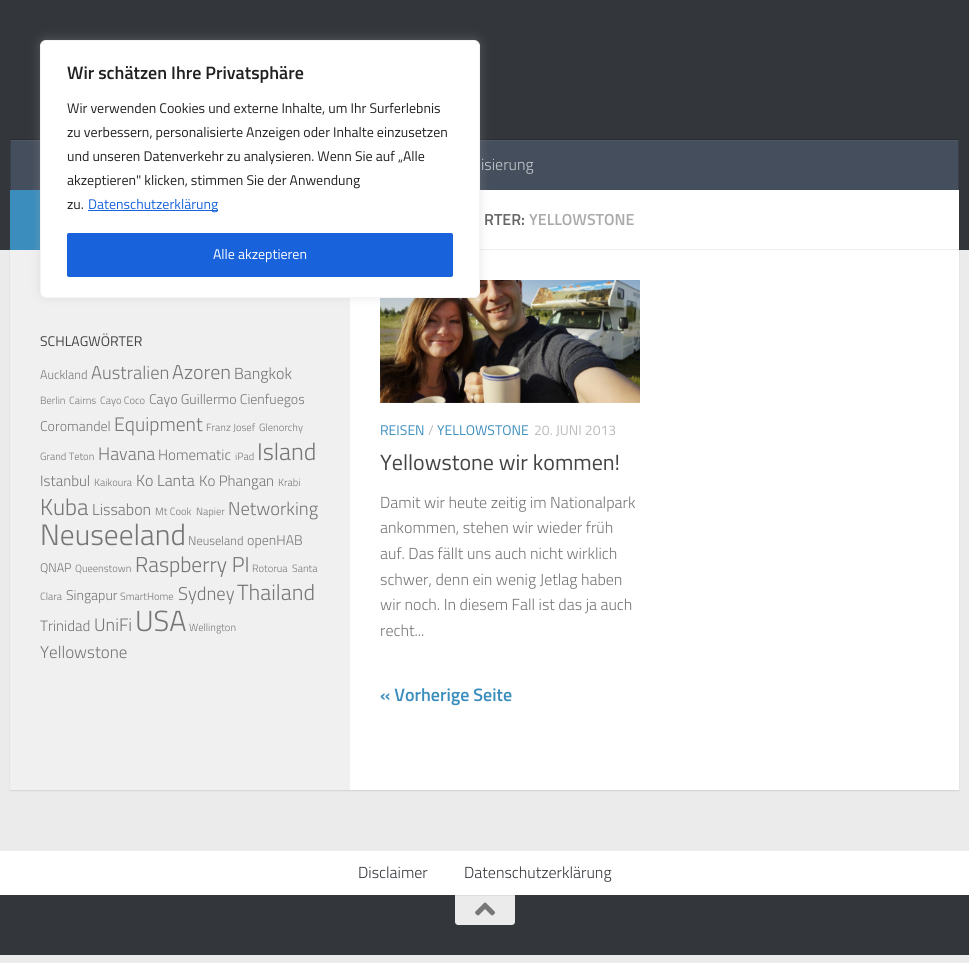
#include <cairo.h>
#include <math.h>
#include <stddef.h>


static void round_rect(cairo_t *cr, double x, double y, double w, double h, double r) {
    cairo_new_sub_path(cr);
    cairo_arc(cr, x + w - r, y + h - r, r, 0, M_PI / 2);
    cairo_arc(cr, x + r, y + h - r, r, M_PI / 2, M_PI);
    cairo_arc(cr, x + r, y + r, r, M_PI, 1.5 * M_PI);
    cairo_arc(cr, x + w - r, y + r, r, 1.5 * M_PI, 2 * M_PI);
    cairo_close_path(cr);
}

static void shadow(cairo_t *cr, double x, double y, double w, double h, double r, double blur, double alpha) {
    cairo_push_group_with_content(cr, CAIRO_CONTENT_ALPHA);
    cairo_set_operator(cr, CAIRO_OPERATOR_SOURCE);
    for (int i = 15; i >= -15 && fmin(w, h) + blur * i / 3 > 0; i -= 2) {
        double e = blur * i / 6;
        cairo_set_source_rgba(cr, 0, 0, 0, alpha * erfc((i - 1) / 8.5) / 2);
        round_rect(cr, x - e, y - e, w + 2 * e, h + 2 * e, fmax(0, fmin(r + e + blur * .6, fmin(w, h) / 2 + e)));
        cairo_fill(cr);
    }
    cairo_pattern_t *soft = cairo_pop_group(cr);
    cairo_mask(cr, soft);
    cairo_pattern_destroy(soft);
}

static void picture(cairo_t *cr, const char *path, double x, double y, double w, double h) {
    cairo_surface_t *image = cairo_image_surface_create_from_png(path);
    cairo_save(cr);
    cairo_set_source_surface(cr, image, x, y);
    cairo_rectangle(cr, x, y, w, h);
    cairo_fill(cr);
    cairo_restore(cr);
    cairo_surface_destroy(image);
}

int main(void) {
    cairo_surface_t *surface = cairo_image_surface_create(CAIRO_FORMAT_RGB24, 969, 963);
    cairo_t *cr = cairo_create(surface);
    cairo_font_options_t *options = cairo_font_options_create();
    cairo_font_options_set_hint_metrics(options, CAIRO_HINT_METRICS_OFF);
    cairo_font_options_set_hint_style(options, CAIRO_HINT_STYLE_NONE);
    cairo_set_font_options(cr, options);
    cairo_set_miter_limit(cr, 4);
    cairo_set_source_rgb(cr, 0.918, 0.918, 0.918);
    cairo_paint(cr);
    cairo_set_source_rgb(cr, 0, 0, 0);
    shadow(cr, 10, 191, 949, 600, 0, 0.5, 0.1);
    cairo_set_source_rgb(cr, 0.2, 0.212, 0.231);
    cairo_rectangle(cr, 0, 0, 969, 250);
    cairo_fill(cr);
    cairo_set_source_rgb(cr, 0.161, 0.169, 0.184);
    cairo_rectangle(cr, 10, 139, 949, 1);
    cairo_fill(cr);
    cairo_set_source_rgb(cr, 0.271, 0.306, 0.361);
    cairo_rectangle(cr, 11, 141, 947, 49);
    cairo_fill(cr);
    cairo_set_source_rgb(cr, 0.306, 0.341, 0.392);
    cairo_rectangle(cr, 10, 140, 949, 1);
    cairo_fill(cr);
    cairo_set_source_rgb(cr, 1, 1, 1);
    cairo_rectangle(cr, 350, 190, 609, 600);
    cairo_fill(cr);
    cairo_set_source_rgb(cr, 0.231, 0.553, 0.741);
    cairo_rectangle(cr, 10, 190, 30, 60);
    cairo_fill(cr);
    cairo_set_source_rgb(cr, 0.933, 0.933, 0.933);
    cairo_rectangle(cr, 480, 249, 479, 1);
    cairo_fill(cr);
    picture(cr, "img1.png", 380, 280, 260, 123);
    cairo_set_source_rgb(cr, 0.941, 0.941, 0.941);
    cairo_rectangle(cr, 10, 250, 340, 540);
    cairo_fill(cr);
    cairo_set_source_rgb(cr, 0.675, 0.671, 0.671);
    shadow(cr, 40, 39, 440, 258, 6, 5, 0.3);
    cairo_set_source_rgb(cr, 1, 1, 1);
    round_rect(cr, 40.5, 40.5, 439, 257, 5.5);
    cairo_fill_preserve(cr);
    cairo_set_source_rgb(cr, 0.957, 0.957, 0.957);
    cairo_set_line_width(cr, 1);
    cairo_stroke(cr);
    cairo_select_font_face(cr, "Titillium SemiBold", CAIRO_FONT_SLANT_NORMAL, CAIRO_FONT_WEIGHT_NORMAL);
    cairo_set_font_size(cr, 18);
    cairo_set_source_rgb(cr, 0.129, 0.129, 0.129);
    cairo_move_to(cr, 67, 79);
    cairo_show_text(cr, "Wir schätzen Ihre Privatsphäre");
    cairo_select_font_face(cr, "Titillium", CAIRO_FONT_SLANT_NORMAL, CAIRO_FONT_WEIGHT_NORMAL);
    cairo_set_font_size(cr, 14);
    cairo_move_to(cr, 67, 113);
    cairo_show_text(cr, "Wir verwenden Cookies und externe Inhalte, um Ihr Surferlebnis");
    cairo_move_to(cr, 67, 137);
    cairo_show_text(cr, "zu verbessern, personalisierte Anzeigen oder Inhalte einzusetzen");
    cairo_move_to(cr, 67, 161);
    cairo_show_text(cr, "und unseren Datenverkehr zu analysieren. Wenn Sie auf „Alle");
    cairo_move_to(cr, 67, 185);
    cairo_show_text(cr, "akzeptieren\" klicken, stimmen Sie der Anwendung");
    cairo_move_to(cr, 67, 209);
    cairo_show_text(cr, "zu.");
    cairo_set_source_rgb(cr, 0.094, 0.388, 0.863);
    cairo_rectangle(cr, 88, 210, 130, 1);
    cairo_fill(cr);
    cairo_move_to(cr, 88, 209);
    cairo_show_text(cr, "Datenschutzerklärung");
    round_rect(cr, 68, 234, 384, 42, 1);
    cairo_fill_preserve(cr);
    cairo_set_line_width(cr, 2);
    cairo_stroke(cr);
    cairo_set_source_rgb(cr, 1, 1, 1);
    cairo_move_to(cr, 213, 259);
    cairo_show_text(cr, "Alle akzeptieren");
    cairo_set_source_rgb(cr, 0.216, 0.243, 0.29);
    cairo_rectangle(cr, 958, 140, 1, 50);
    cairo_fill(cr);
    cairo_set_source_rgb(cr, 0.255, 0.282, 0.325);
    cairo_rectangle(cr, 958, 140, 1, 1);
    cairo_fill(cr);
    cairo_set_source_rgb(cr, 0.216, 0.243, 0.29);
    cairo_rectangle(cr, 10, 140, 1, 50);
    cairo_fill(cr);
    cairo_set_source_rgb(cr, 0.255, 0.282, 0.325);
    cairo_rectangle(cr, 10, 140, 1, 1);
    cairo_fill(cr);
    cairo_select_font_face(cr, "Titillium Light", CAIRO_FONT_SLANT_NORMAL, CAIRO_FONT_WEIGHT_NORMAL);
    cairo_set_font_size(cr, 16);
    cairo_set_source_rgb(cr, 0.78, 0.792, 0.808);
    cairo_move_to(cr, 481, 170);
    cairo_show_text(cr, "isierung");
    cairo_select_font_face(cr, "Titillium", CAIRO_FONT_SLANT_NORMAL, CAIRO_FONT_WEIGHT_NORMAL);
    cairo_set_font_size(cr, 14);
    cairo_set_source_rgb(cr, 0.267, 0.267, 0.267);
    cairo_move_to(cr, 40, 346);
    cairo_show_text(cr, "SCHLAGWÖRTER");
    cairo_select_font_face(cr, "Titillium Light", CAIRO_FONT_SLANT_NORMAL, CAIRO_FONT_WEIGHT_NORMAL);
    cairo_set_font_size(cr, 12.5);
    cairo_set_source_rgb(cr, 0.463, 0.463, 0.463);
    cairo_move_to(cr, 40, 379);
    cairo_show_text(cr, "Auckland");
    cairo_set_font_size(cr, 18.5);
    cairo_move_to(cr, 91, 379);
    cairo_show_text(cr, "Australien");
    cairo_set_font_size(cr, 20);
    cairo_move_to(cr, 172, 379);
    cairo_show_text(cr, "Azoren");
    cairo_set_font_size(cr, 16);
    cairo_move_to(cr, 234, 379);
    cairo_show_text(cr, "Bangkok");
    cairo_set_font_size(cr, 10.5);
    cairo_move_to(cr, 40, 404);
    cairo_show_text(cr, "Berlin");
    cairo_move_to(cr, 69, 404);
    cairo_show_text(cr, "Cairns");
    cairo_move_to(cr, 100, 404);
    cairo_show_text(cr, "Cayo Coco");
    cairo_set_font_size(cr, 14);
    cairo_move_to(cr, 149, 404);
    cairo_show_text(cr, "Cayo Guillermo Cienfuegos");
    cairo_move_to(cr, 40, 431);
    cairo_show_text(cr, "Coromandel");
    cairo_set_font_size(cr, 19.5);
    cairo_move_to(cr, 114, 431);
    cairo_show_text(cr, "Equipment");
    cairo_set_font_size(cr, 10.5);
    cairo_move_to(cr, 206, 431);
    cairo_show_text(cr, "Franz Josef");
    cairo_move_to(cr, 259, 431);
    cairo_show_text(cr, "Glenorchy");
    cairo_move_to(cr, 40, 460);
    cairo_show_text(cr, "Grand Teton");
    cairo_set_font_size(cr, 18);
    cairo_move_to(cr, 98, 460);
    cairo_show_text(cr, "Havana");
    cairo_set_font_size(cr, 15);
    cairo_move_to(cr, 158, 460);
    cairo_show_text(cr, "Homematic");
    cairo_set_font_size(cr, 10.5);
    cairo_move_to(cr, 235, 460);
    cairo_show_text(cr, "iPad");
    cairo_set_font_size(cr, 24);
    cairo_move_to(cr, 257, 460);
    cairo_show_text(cr, "Island");
    cairo_set_font_size(cr, 15);
    cairo_move_to(cr, 40, 486);
    cairo_show_text(cr, "Istanbul");
    cairo_set_font_size(cr, 10.5);
    cairo_move_to(cr, 94, 486);
    cairo_show_text(cr, "Kaikoura");
    cairo_set_font_size(cr, 16);
    cairo_move_to(cr, 136, 486);
    cairo_show_text(cr, "Ko Lanta");
    cairo_set_font_size(cr, 15);
    cairo_move_to(cr, 199, 486);
    cairo_show_text(cr, "Ko Phangan");
    cairo_set_font_size(cr, 10.5);
    cairo_move_to(cr, 278, 486);
    cairo_show_text(cr, "Krabi");
    cairo_set_font_size(cr, 23);
    cairo_move_to(cr, 40, 515);
    cairo_show_text(cr, "Kuba");
    cairo_set_font_size(cr, 16);
    cairo_move_to(cr, 92, 515);
    cairo_show_text(cr, "Lissabon");
    cairo_set_font_size(cr, 10.5);
    cairo_move_to(cr, 155, 515);
    cairo_show_text(cr, "Mt Cook");
    cairo_move_to(cr, 196, 515);
    cairo_show_text(cr, "Napier");
    cairo_set_font_size(cr, 18.5);
    cairo_move_to(cr, 228, 515);
    cairo_show_text(cr, "Networking");
    cairo_set_font_size(cr, 29.5);
    cairo_move_to(cr, 40, 545);
    cairo_show_text(cr, "Neuseeland");
    cairo_set_font_size(cr, 12.5);
    cairo_move_to(cr, 188, 545);
    cairo_show_text(cr, "Neuseland");
    cairo_set_font_size(cr, 14);
    cairo_move_to(cr, 247, 545);
    cairo_show_text(cr, "openHAB");
    cairo_set_font_size(cr, 12.5);
    cairo_move_to(cr, 40, 572);
    cairo_show_text(cr, "QNAP");
    cairo_set_font_size(cr, 10.5);
    cairo_move_to(cr, 75, 572);
    cairo_show_text(cr, "Queenstown");
    cairo_set_font_size(cr, 21.5);
    cairo_move_to(cr, 135, 572);
    cairo_show_text(cr, "Raspberry PI");
    cairo_set_font_size(cr, 10.5);
    cairo_move_to(cr, 252, 572);
    cairo_show_text(cr, "Rotorua");
    cairo_move_to(cr, 292, 572);
    cairo_show_text(cr, "Santa");
    cairo_move_to(cr, 40, 600);
    cairo_show_text(cr, "Clara");
    cairo_set_font_size(cr, 14);
    cairo_move_to(cr, 66, 600);
    cairo_show_text(cr, "Singapur");
    cairo_set_font_size(cr, 10.5);
    cairo_move_to(cr, 120, 600);
    cairo_show_text(cr, "SmartHome");
    cairo_set_font_size(cr, 18.5);
    cairo_move_to(cr, 178, 600);
    cairo_show_text(cr, "Sydney");
    cairo_set_font_size(cr, 22);
    cairo_move_to(cr, 237, 600);
    cairo_show_text(cr, "Thailand");
    cairo_set_font_size(cr, 15);
    cairo_move_to(cr, 40, 631);
    cairo_show_text(cr, "Trinidad");
    cairo_set_font_size(cr, 18);
    cairo_move_to(cr, 94, 631);
    cairo_show_text(cr, "UniFi");
    cairo_set_font_size(cr, 29);
    cairo_move_to(cr, 135, 631);
    cairo_show_text(cr, "USA");
    cairo_set_font_size(cr, 10.5);
    cairo_move_to(cr, 189, 631);
    cairo_show_text(cr, "Wellington");
    cairo_set_font_size(cr, 17);
    cairo_move_to(cr, 40, 658);
    cairo_show_text(cr, "Yellowstone");
    cairo_select_font_face(cr, "Titillium SemiBold", CAIRO_FONT_SLANT_NORMAL, CAIRO_FONT_WEIGHT_NORMAL);
    cairo_set_font_size(cr, 16);
    cairo_set_source_rgb(cr, 0.4, 0.4, 0.4);
    cairo_move_to(cr, 484, 225);
    cairo_show_text(cr, "RTER:");
    cairo_set_source_rgb(cr, 0.667, 0.667, 0.667);
    cairo_move_to(cr, 529, 225);
    cairo_show_text(cr, "YELLOWSTONE");
    cairo_select_font_face(cr, "Titillium", CAIRO_FONT_SLANT_NORMAL, CAIRO_FONT_WEIGHT_NORMAL);
    cairo_set_font_size(cr, 14);
    cairo_set_source_rgb(cr, 0.231, 0.553, 0.741);
    cairo_move_to(cr, 380, 435);
    cairo_show_text(cr, "REISEN");
    cairo_set_source_rgb(cr, 0.733, 0.733, 0.733);
    cairo_move_to(cr, 428, 435);
    cairo_show_text(cr, "/");
    cairo_set_source_rgb(cr, 0.231, 0.553, 0.741);
    cairo_move_to(cr, 437, 435);
    cairo_show_text(cr, "YELLOWSTONE");
    cairo_set_source_rgb(cr, 0.733, 0.733, 0.733);
    cairo_move_to(cr, 534, 435);
    cairo_show_text(cr, "20. JUNI 2013");
    cairo_set_font_size(cr, 22);
    cairo_set_source_rgb(cr, 0.267, 0.267, 0.267);
    cairo_move_to(cr, 380, 470);
    cairo_show_text(cr, "Yellowstone wir kommen!");
    cairo_select_font_face(cr, "Titillium Light", CAIRO_FONT_SLANT_NORMAL, CAIRO_FONT_WEIGHT_NORMAL);
    cairo_set_font_size(cr, 16);
    cairo_set_source_rgb(cr, 0.463, 0.463, 0.463);
    cairo_move_to(cr, 380, 508);
    cairo_show_text(cr, "Damit wir heute zeitig im Nationalpark");
    cairo_move_to(cr, 380, 533);
    cairo_show_text(cr, "ankommen, stehen wir wieder früh");
    cairo_move_to(cr, 380, 559);
    cairo_show_text(cr, "auf. Das fällt uns auch nicht wirklich");
    cairo_move_to(cr, 380, 585);
    cairo_show_text(cr, "schwer, denn ein wenig Jetlag haben");
    cairo_move_to(cr, 380, 610);
    cairo_show_text(cr, "wir noch. In diesem Fall ist das ja auch");
    cairo_move_to(cr, 380, 636);
    cairo_show_text(cr, "recht...");
    cairo_select_font_face(cr, "Titillium SemiBold", CAIRO_FONT_SLANT_NORMAL, CAIRO_FONT_WEIGHT_NORMAL);
    cairo_set_font_size(cr, 18);
    cairo_set_source_rgb(cr, 0.231, 0.553, 0.741);
    cairo_move_to(cr, 380, 701);
    cairo_show_text(cr, "« Vorherige Seite");
    cairo_set_source_rgb(cr, 1, 1, 1);
    cairo_rectangle(cr, 0, 851, 969, 44);
    cairo_fill(cr);
    cairo_set_source_rgb(cr, 0.933, 0.933, 0.933);
    cairo_rectangle(cr, 0, 850, 969, 1);
    cairo_fill(cr);
    cairo_select_font_face(cr, "Titillium Light", CAIRO_FONT_SLANT_NORMAL, CAIRO_FONT_WEIGHT_NORMAL);
    cairo_set_font_size(cr, 16);
    cairo_set_source_rgb(cr, 0.2, 0.212, 0.231);
    cairo_move_to(cr, 358, 878);
    cairo_show_text(cr, "Disclaimer");
    cairo_move_to(cr, 464, 878);
    cairo_show_text(cr, "Datenschutzerklärung");
    cairo_rectangle(cr, 0, 895, 969, 60);
    cairo_fill(cr);
    cairo_set_source_rgb(cr, 0.918, 0.918, 0.918);
    cairo_new_path(cr);
    cairo_move_to(cr, 455, 895);
    cairo_line_to(cr, 515, 895);
    cairo_line_to(cr, 515, 922);
    cairo_curve_to(cr, 515, 923.5, 513.5, 925, 512, 925);
    cairo_line_to(cr, 458, 925);
    cairo_curve_to(cr, 456.5, 925, 455, 923.5, 455, 922);
    cairo_close_path(cr);
    cairo_fill(cr);
    cairo_set_source_rgb(cr, 0.871, 0.871, 0.871);
    cairo_rectangle(cr, 455, 895, 60, 1);
    cairo_fill(cr);
    picture(cr, "img2.png", 475, 902, 20, 14);
    cairo_surface_write_to_png(surface, "page.png");
    cairo_font_options_destroy(options);
    cairo_destroy(cr);
    cairo_surface_destroy(surface);
    return 0;
}
